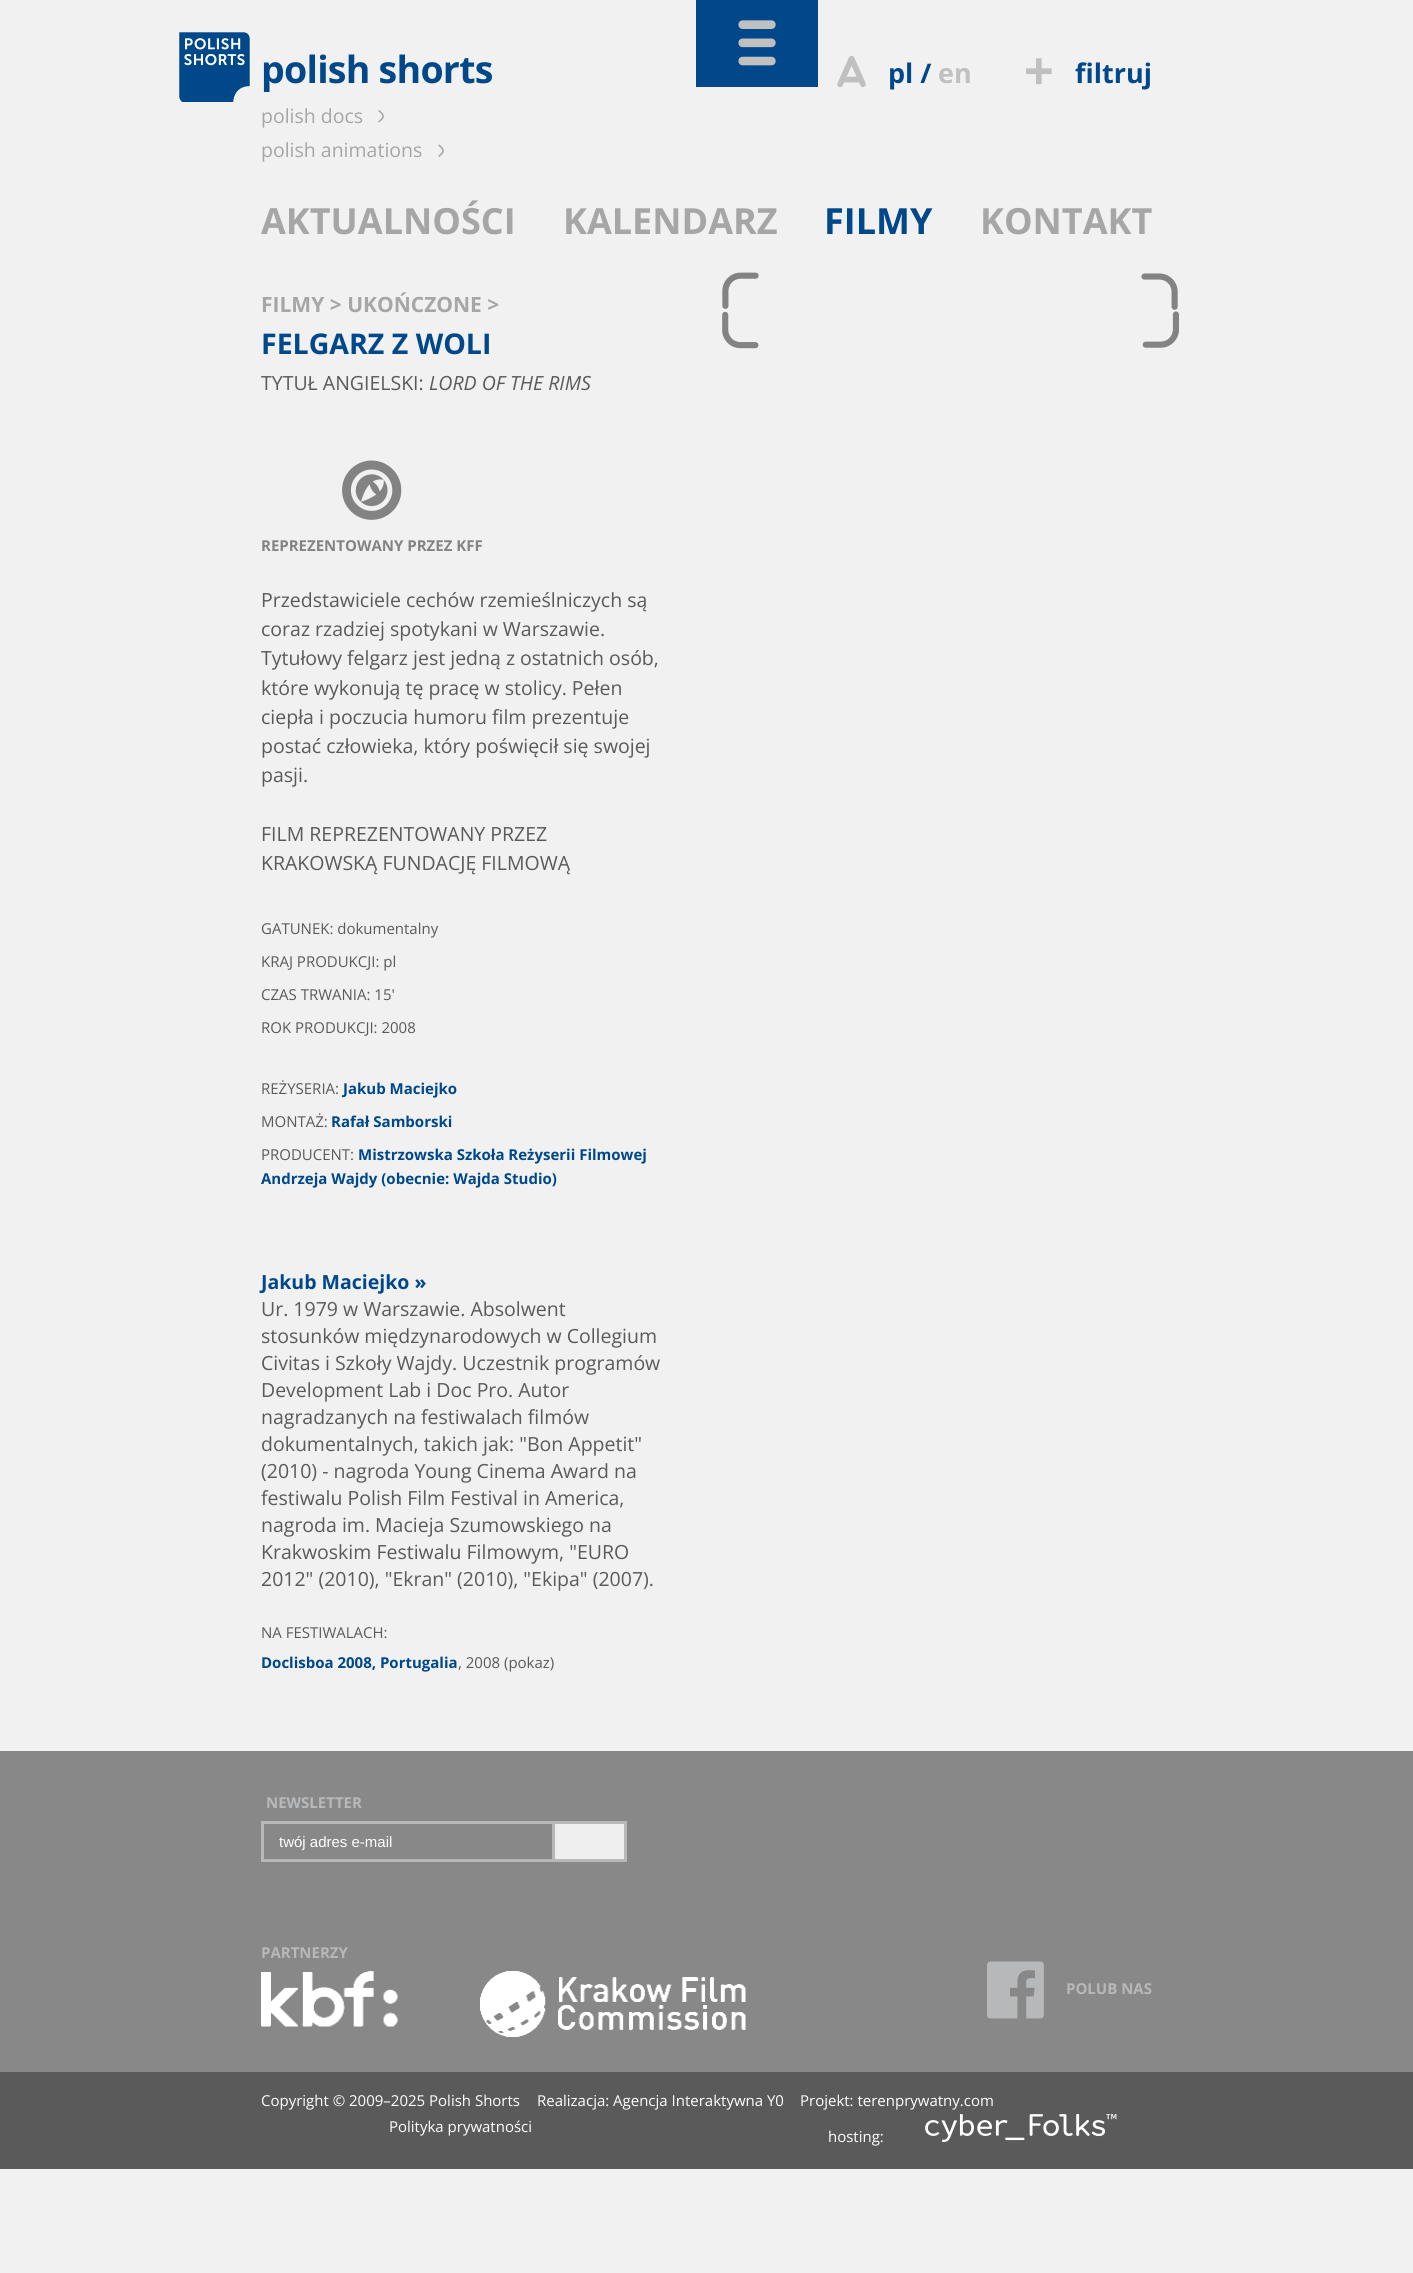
#include <cairo.h>
#include <math.h>
#include <stddef.h>


static void spaced_text(cairo_t *cr, double x, double y, const char *s, double letter, double word) {
    cairo_move_to(cr, x, y);
    while (*s) {
        char ch[5] = {0};
        int n = 0;
        do ch[n++] = *s++; while ((*s & 0xC0) == 0x80);
        cairo_show_text(cr, ch);
        cairo_rel_move_to(cr, letter + word * (*ch == ' '), 0);
    }
}

static void picture(cairo_t *cr, const char *path, double x, double y, double w, double h) {
    cairo_surface_t *image = cairo_image_surface_create_from_png(path);
    cairo_save(cr);
    cairo_set_source_surface(cr, image, x, y);
    cairo_rectangle(cr, x, y, w, h);
    cairo_fill(cr);
    cairo_restore(cr);
    cairo_surface_destroy(image);
}

int main(void) {
    cairo_surface_t *surface = cairo_image_surface_create(CAIRO_FORMAT_RGB24, 1413, 2273);
    cairo_t *cr = cairo_create(surface);
    cairo_font_options_t *options = cairo_font_options_create();
    cairo_font_options_set_hint_metrics(options, CAIRO_HINT_METRICS_OFF);
    cairo_font_options_set_hint_style(options, CAIRO_HINT_STYLE_NONE);
    cairo_set_font_options(cr, options);
    cairo_set_miter_limit(cr, 4);
    cairo_set_source_rgb(cr, 0.945, 0.945, 0.945);
    cairo_paint(cr);
    picture(cr, "img1.png", 179, 32, 72, 70);
    cairo_select_font_face(cr, "Open Sans", CAIRO_FONT_SLANT_NORMAL, CAIRO_FONT_WEIGHT_BOLD);
    cairo_set_font_size(cr, 37.5);
    cairo_set_source_rgb(cr, 0, 0.282, 0.541);
    spaced_text(cr, 261, 83, "polish shorts", -0.75, 0);
    cairo_rectangle(cr, 696, 0, 122, 87);
    cairo_fill(cr);
    picture(cr, "img2.png", 738, 20, 38, 46);
    picture(cr, "img3.png", 837, 55, 29, 33);
    cairo_set_font_size(cr, 27);
    cairo_move_to(cr, 888, 83);
    cairo_show_text(cr, "pl /");
    cairo_set_source_rgb(cr, 0.757, 0.753, 0.757);
    cairo_move_to(cr, 938, 83);
    cairo_show_text(cr, "en");
    picture(cr, "img4.png", 1026, 58, 26, 27);
    cairo_set_source_rgb(cr, 0, 0.282, 0.541);
    cairo_move_to(cr, 1075, 83);
    cairo_show_text(cr, "filtruj");
    cairo_select_font_face(cr, "Open Sans", CAIRO_FONT_SLANT_NORMAL, CAIRO_FONT_WEIGHT_NORMAL);
    cairo_set_font_size(cr, 19.5);
    cairo_set_source_rgb(cr, 0.651, 0.651, 0.651);
    cairo_move_to(cr, 261, 123);
    cairo_show_text(cr, "polish docs");
    picture(cr, "img5.png", 378, 110, 6, 13);
    cairo_move_to(cr, 261, 157);
    cairo_show_text(cr, "polish animations");
    picture(cr, "img6.png", 438, 144, 6, 13);
    cairo_select_font_face(cr, "Open Sans", CAIRO_FONT_SLANT_NORMAL, CAIRO_FONT_WEIGHT_BOLD);
    cairo_set_font_size(cr, 36);
    cairo_move_to(cr, 261, 234);
    cairo_show_text(cr, "AKTUALNOŚCI");
    cairo_move_to(cr, 563, 234);
    cairo_show_text(cr, "KALENDARZ");
    cairo_set_source_rgb(cr, 0, 0.282, 0.541);
    cairo_move_to(cr, 824, 234);
    cairo_show_text(cr, "FILMY");
    cairo_set_source_rgb(cr, 0.651, 0.651, 0.651);
    cairo_move_to(cr, 980, 234);
    cairo_show_text(cr, "KONTAKT");
    cairo_set_font_size(cr, 21);
    cairo_move_to(cr, 261, 312);
    cairo_show_text(cr, "FILMY > UKOŃCZONE >");
    picture(cr, "img7.png", 722, 272, 37, 37);
    picture(cr, "img8.png", 1141, 273, 37, 37);
    picture(cr, "img9.png", 722, 311, 37, 38);
    picture(cr, "img10.png", 1142, 311, 37, 37);
    cairo_set_font_size(cr, 28.5);
    cairo_set_source_rgb(cr, 0, 0.282, 0.541);
    cairo_move_to(cr, 261, 354);
    cairo_show_text(cr, "FELGARZ Z WOLI");
    cairo_select_font_face(cr, "Open Sans", CAIRO_FONT_SLANT_NORMAL, CAIRO_FONT_WEIGHT_NORMAL);
    cairo_set_font_size(cr, 19.5);
    cairo_set_source_rgb(cr, 0.353, 0.353, 0.353);
    cairo_move_to(cr, 261, 390);
    cairo_show_text(cr, "TYTUŁ ANGIELSKI:");
    cairo_select_font_face(cr, "Open Sans", CAIRO_FONT_SLANT_ITALIC, CAIRO_FONT_WEIGHT_NORMAL);
    cairo_move_to(cr, 429, 390);
    cairo_show_text(cr, "LORD OF THE RIMS");
    picture(cr, "img11.png", 342, 460, 60, 60);
    cairo_select_font_face(cr, "Open Sans", CAIRO_FONT_SLANT_NORMAL, CAIRO_FONT_WEIGHT_BOLD);
    cairo_set_font_size(cr, 15);
    cairo_set_source_rgb(cr, 0.514, 0.514, 0.514);
    cairo_move_to(cr, 261, 551);
    cairo_show_text(cr, "REPREZENTOWANY PRZEZ KFF");
    cairo_select_font_face(cr, "Open Sans", CAIRO_FONT_SLANT_NORMAL, CAIRO_FONT_WEIGHT_NORMAL);
    cairo_set_font_size(cr, 19.5);
    cairo_set_source_rgb(cr, 0.353, 0.353, 0.353);
    cairo_move_to(cr, 261, 607);
    cairo_show_text(cr, "Przedstawiciele cechów rzemieślniczych są");
    cairo_move_to(cr, 261, 636);
    cairo_show_text(cr, "coraz rzadziej spotykani w Warszawie.");
    cairo_move_to(cr, 261, 665);
    cairo_show_text(cr, "Tytułowy felgarz jest jedną z ostatnich osób,");
    cairo_move_to(cr, 261, 695);
    cairo_show_text(cr, "które wykonują tę pracę w stolicy. Pełen");
    cairo_move_to(cr, 261, 724);
    cairo_show_text(cr, "ciepła i poczucia humoru film prezentuje");
    cairo_move_to(cr, 261, 753);
    cairo_show_text(cr, "postać człowieka, który poświęcił się swojej");
    cairo_move_to(cr, 261, 782);
    cairo_show_text(cr, "pasji.");
    cairo_move_to(cr, 261, 841);
    cairo_show_text(cr, "FILM REPREZENTOWANY PRZEZ");
    cairo_move_to(cr, 261, 870);
    cairo_show_text(cr, "KRAKOWSKĄ FUNDACJĘ FILMOWĄ");
    cairo_set_font_size(cr, 15);
    cairo_move_to(cr, 261, 934);
    cairo_show_text(cr, "GATUNEK: dokumentalny");
    cairo_move_to(cr, 261, 967);
    cairo_show_text(cr, "KRAJ PRODUKCJI: pl");
    cairo_move_to(cr, 261, 1000);
    cairo_show_text(cr, "CZAS TRWANIA: 15'");
    cairo_move_to(cr, 261, 1033);
    cairo_show_text(cr, "ROK PRODUKCJI: 2008");
    cairo_move_to(cr, 261, 1094);
    cairo_show_text(cr, "REŻYSERIA:");
    cairo_select_font_face(cr, "Open Sans", CAIRO_FONT_SLANT_NORMAL, CAIRO_FONT_WEIGHT_BOLD);
    cairo_set_source_rgb(cr, 0, 0.282, 0.541);
    cairo_move_to(cr, 343, 1094);
    cairo_show_text(cr, "Jakub Maciejko");
    cairo_select_font_face(cr, "Open Sans", CAIRO_FONT_SLANT_NORMAL, CAIRO_FONT_WEIGHT_NORMAL);
    cairo_set_source_rgb(cr, 0.353, 0.353, 0.353);
    cairo_move_to(cr, 261, 1127);
    cairo_show_text(cr, "MONTAŻ:");
    cairo_select_font_face(cr, "Open Sans", CAIRO_FONT_SLANT_NORMAL, CAIRO_FONT_WEIGHT_BOLD);
    cairo_set_source_rgb(cr, 0, 0.282, 0.541);
    cairo_move_to(cr, 331, 1127);
    cairo_show_text(cr, "Rafał Samborski");
    cairo_move_to(cr, 358, 1160);
    cairo_show_text(cr, "Mistrzowska Szkoła Reżyserii Filmowej");
    cairo_move_to(cr, 261, 1184);
    cairo_show_text(cr, "Andrzeja Wajdy (obecnie: Wajda Studio)");
    cairo_select_font_face(cr, "Open Sans", CAIRO_FONT_SLANT_NORMAL, CAIRO_FONT_WEIGHT_NORMAL);
    cairo_set_source_rgb(cr, 0.353, 0.353, 0.353);
    cairo_move_to(cr, 261, 1160);
    cairo_show_text(cr, "PRODUCENT:");
    cairo_select_font_face(cr, "Open Sans", CAIRO_FONT_SLANT_NORMAL, CAIRO_FONT_WEIGHT_BOLD);
    cairo_set_font_size(cr, 19.5);
    cairo_set_source_rgb(cr, 0, 0.282, 0.541);
    cairo_move_to(cr, 261, 1289);
    cairo_show_text(cr, "Jakub Maciejko »");
    cairo_select_font_face(cr, "Open Sans", CAIRO_FONT_SLANT_NORMAL, CAIRO_FONT_WEIGHT_NORMAL);
    cairo_set_source_rgb(cr, 0.353, 0.353, 0.353);
    cairo_move_to(cr, 261, 1316);
    cairo_show_text(cr, "Ur. 1979 w Warszawie. Absolwent");
    cairo_move_to(cr, 261, 1343);
    cairo_show_text(cr, "stosunków międzynarodowych w Collegium");
    cairo_move_to(cr, 261, 1370);
    cairo_show_text(cr, "Civitas i Szkoły Wajdy. Uczestnik programów");
    cairo_move_to(cr, 261, 1397);
    cairo_show_text(cr, "Development Lab i Doc Pro. Autor");
    cairo_move_to(cr, 261, 1424);
    cairo_show_text(cr, "nagradzanych na festiwalach filmów");
    cairo_move_to(cr, 261, 1451);
    cairo_show_text(cr, "dokumentalnych, takich jak: \"Bon Appetit\"");
    cairo_move_to(cr, 261, 1478);
    cairo_show_text(cr, "(2010) - nagroda Young Cinema Award na");
    cairo_move_to(cr, 261, 1505);
    cairo_show_text(cr, "festiwalu Polish Film Festival in America,");
    cairo_move_to(cr, 261, 1532);
    cairo_show_text(cr, "nagroda im. Macieja Szumowskiego na");
    cairo_move_to(cr, 261, 1559);
    cairo_show_text(cr, "Krakwoskim Festiwalu Filmowym, \"EURO");
    cairo_move_to(cr, 261, 1586);
    cairo_show_text(cr, "2012\" (2010), \"Ekran\" (2010), \"Ekipa\" (2007).");
    cairo_set_font_size(cr, 15);
    cairo_move_to(cr, 261, 1638);
    cairo_show_text(cr, "NA FESTIWALACH:");
    cairo_select_font_face(cr, "Open Sans", CAIRO_FONT_SLANT_NORMAL, CAIRO_FONT_WEIGHT_BOLD);
    cairo_set_source_rgb(cr, 0, 0.282, 0.541);
    cairo_move_to(cr, 261, 1668);
    cairo_show_text(cr, "Doclisboa 2008, Portugalia");
    cairo_select_font_face(cr, "Open Sans", CAIRO_FONT_SLANT_NORMAL, CAIRO_FONT_WEIGHT_NORMAL);
    cairo_set_source_rgb(cr, 0.353, 0.353, 0.353);
    cairo_move_to(cr, 458, 1668);
    cairo_show_text(cr, ", 2008 (pokaz)");
    cairo_set_source_rgb(cr, 0.533, 0.533, 0.533);
    cairo_rectangle(cr, 0, 1751, 1413, 321);
    cairo_fill(cr);
    cairo_select_font_face(cr, "Open Sans", CAIRO_FONT_SLANT_NORMAL, CAIRO_FONT_WEIGHT_BOLD);
    cairo_set_source_rgb(cr, 0.718, 0.722, 0.729);
    cairo_move_to(cr, 266, 1808);
    cairo_show_text(cr, "NEWSLETTER");
    cairo_rectangle(cr, 261, 1821, 291, 3);
    cairo_fill(cr);
    cairo_rectangle(cr, 261, 1859, 291, 3);
    cairo_fill(cr);
    cairo_rectangle(cr, 261, 1821, 3, 41);
    cairo_fill(cr);
    cairo_select_font_face(cr, "Liberation Sans", CAIRO_FONT_SLANT_NORMAL, CAIRO_FONT_WEIGHT_NORMAL);
    cairo_set_source_rgb(cr, 1, 1, 1);
    cairo_move_to(cr, 279, 1847);
    cairo_show_text(cr, "twój adres e-mail");
    cairo_set_source_rgb(cr, 0.937, 0.937, 0.937);
    cairo_rectangle(cr, 553.5, 1822.5, 72, 38);
    cairo_fill_preserve(cr);
    cairo_set_source_rgb(cr, 0.718, 0.722, 0.729);
    cairo_set_line_width(cr, 3);
    cairo_stroke(cr);
    cairo_select_font_face(cr, "Open Sans", CAIRO_FONT_SLANT_NORMAL, CAIRO_FONT_WEIGHT_BOLD);
    cairo_move_to(cr, 261, 1958);
    cairo_show_text(cr, "PARTNERZY");
    picture(cr, "img12.png", 261, 1971, 137, 56);
    picture(cr, "img13.png", 480, 1971, 266, 66);
    picture(cr, "img14.png", 987, 1961, 57, 58);
    cairo_move_to(cr, 1066, 1994);
    cairo_show_text(cr, "POLUB NAS");
    cairo_set_source_rgb(cr, 0.353, 0.353, 0.353);
    cairo_rectangle(cr, 0, 2072, 1413, 97);
    cairo_fill(cr);
    cairo_select_font_face(cr, "Open Sans", CAIRO_FONT_SLANT_NORMAL, CAIRO_FONT_WEIGHT_NORMAL);
    cairo_set_source_rgb(cr, 1, 1, 1);
    cairo_move_to(cr, 261, 2106);
    cairo_show_text(cr, "Copyright © 2009–2025 Polish Shorts");
    cairo_move_to(cr, 537, 2106);
    cairo_show_text(cr, "Realizacja: Agencja Interaktywna Y0");
    cairo_move_to(cr, 800, 2106);
    cairo_show_text(cr, "Projekt: terenprywatny.com");
    cairo_move_to(cr, 389, 2132);
    cairo_show_text(cr, "Polityka prywatności");
    cairo_move_to(cr, 828, 2142);
    cairo_show_text(cr, "hosting:");
    picture(cr, "img15.png", 925, 2114, 192, 28);
    cairo_surface_write_to_png(surface, "page.png");
    cairo_font_options_destroy(options);
    cairo_destroy(cr);
    cairo_surface_destroy(surface);
    return 0;
}
